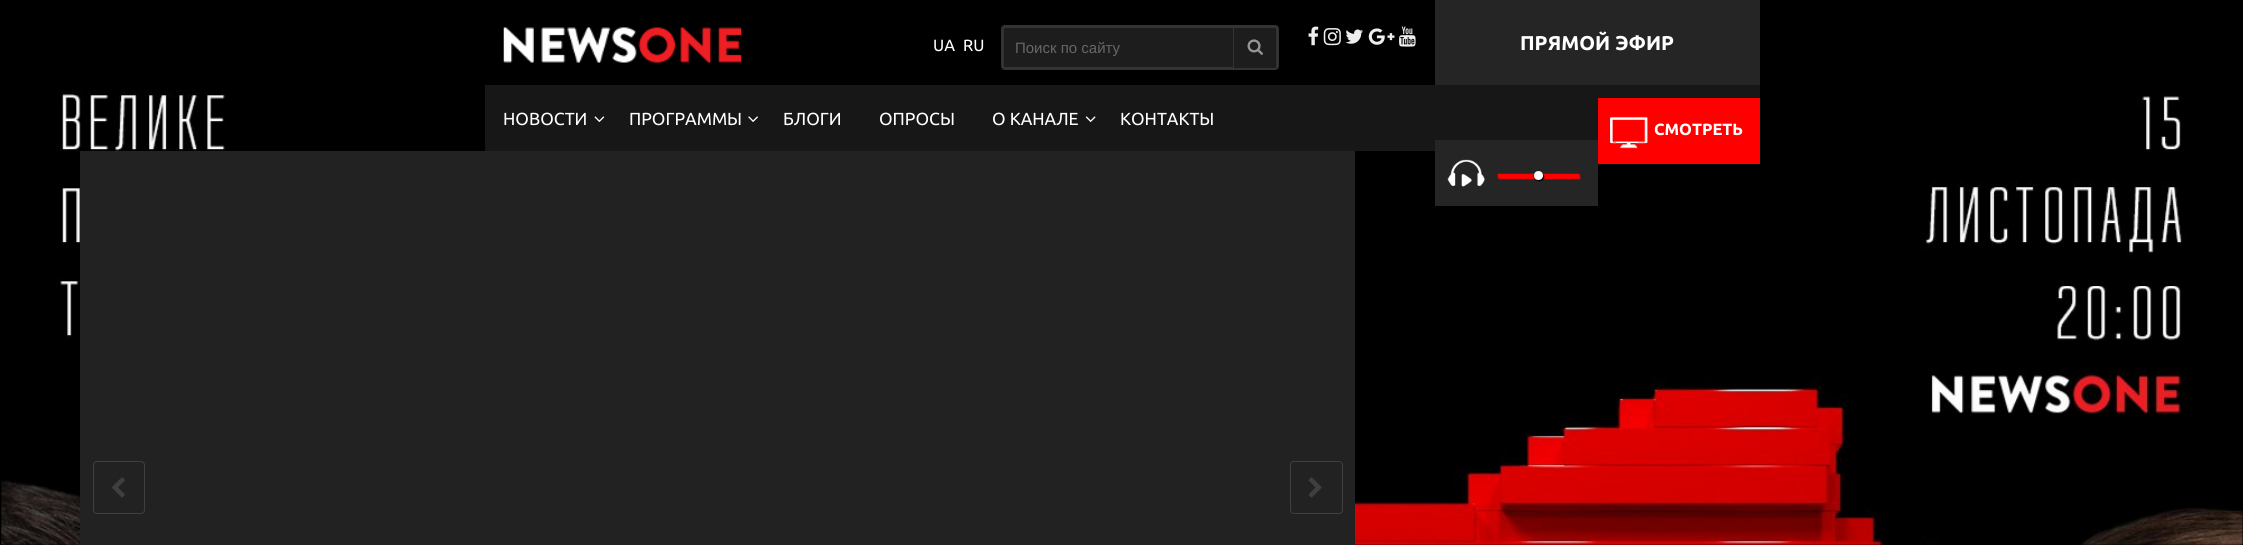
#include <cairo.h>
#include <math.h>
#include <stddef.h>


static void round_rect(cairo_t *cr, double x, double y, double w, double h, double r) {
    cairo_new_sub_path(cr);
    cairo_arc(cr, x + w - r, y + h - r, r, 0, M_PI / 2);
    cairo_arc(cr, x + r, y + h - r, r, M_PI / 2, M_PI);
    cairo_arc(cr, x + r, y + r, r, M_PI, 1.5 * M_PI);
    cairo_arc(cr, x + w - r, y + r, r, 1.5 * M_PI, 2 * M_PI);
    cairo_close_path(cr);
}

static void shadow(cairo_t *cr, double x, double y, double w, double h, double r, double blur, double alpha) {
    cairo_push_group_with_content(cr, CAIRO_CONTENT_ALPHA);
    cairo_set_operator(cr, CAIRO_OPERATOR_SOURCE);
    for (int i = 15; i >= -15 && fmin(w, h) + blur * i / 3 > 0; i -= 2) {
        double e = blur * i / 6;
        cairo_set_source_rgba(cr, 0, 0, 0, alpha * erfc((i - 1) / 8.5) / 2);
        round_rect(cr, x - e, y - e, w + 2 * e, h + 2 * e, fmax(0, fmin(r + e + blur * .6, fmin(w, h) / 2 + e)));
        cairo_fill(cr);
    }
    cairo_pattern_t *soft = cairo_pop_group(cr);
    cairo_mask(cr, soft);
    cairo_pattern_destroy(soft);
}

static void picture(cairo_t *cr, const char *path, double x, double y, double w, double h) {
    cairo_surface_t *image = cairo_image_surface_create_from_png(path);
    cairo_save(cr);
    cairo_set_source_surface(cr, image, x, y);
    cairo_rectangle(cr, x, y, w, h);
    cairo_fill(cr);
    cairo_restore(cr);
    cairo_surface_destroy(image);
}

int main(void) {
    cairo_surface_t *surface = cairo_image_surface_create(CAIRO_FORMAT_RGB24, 2243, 545);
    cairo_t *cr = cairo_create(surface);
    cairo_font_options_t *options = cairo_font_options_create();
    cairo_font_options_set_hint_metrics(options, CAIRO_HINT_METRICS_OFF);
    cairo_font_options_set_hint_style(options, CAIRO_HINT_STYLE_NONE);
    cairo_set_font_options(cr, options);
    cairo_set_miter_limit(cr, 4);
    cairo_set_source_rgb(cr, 0, 0, 0);
    cairo_paint(cr);
    picture(cr, "img1.png", 1, 90, 2242, 455);
    picture(cr, "img2.png", 503, 27, 239, 36);
    cairo_select_font_face(cr, "Ubuntu", CAIRO_FONT_SLANT_NORMAL, CAIRO_FONT_WEIGHT_NORMAL);
    cairo_set_font_size(cr, 16.25);
    cairo_set_source_rgb(cr, 1, 1, 1);
    cairo_move_to(cr, 933, 51);
    cairo_show_text(cr, "UA");
    cairo_move_to(cr, 963, 51);
    cairo_show_text(cr, "RU");
    cairo_set_source_rgb(cr, 0.114, 0.114, 0.114);
    round_rect(cr, 1002.5, 26.5, 275, 42, 2.5);
    cairo_fill_preserve(cr);
    cairo_set_source_rgb(cr, 0.2, 0.2, 0.2);
    cairo_set_line_width(cr, 3);
    cairo_stroke(cr);
    cairo_select_font_face(cr, "Liberation Sans", CAIRO_FONT_SLANT_NORMAL, CAIRO_FONT_WEIGHT_NORMAL);
    cairo_set_font_size(cr, 15);
    cairo_set_source_rgb(cr, 0.4, 0.4, 0.4);
    cairo_move_to(cr, 1015, 53);
    cairo_show_text(cr, "Поиск по сайту");
    cairo_set_source_rgb(cr, 0.114, 0.114, 0.114);
    cairo_rectangle(cr, 1234, 28, 42, 40);
    cairo_fill(cr);
    cairo_set_source_rgb(cr, 0.2, 0.2, 0.2);
    cairo_rectangle(cr, 1233, 28, 1, 40);
    cairo_fill(cr);
    picture(cr, "img3.png", 1247, 39, 16, 16);
    picture(cr, "img4.png", 1308, 26, 11, 20);
    picture(cr, "img5.png", 1323, 28, 18, 18);
    picture(cr, "img6.png", 1345, 29, 18, 15);
    picture(cr, "img7.png", 1368, 28, 27, 17);
    picture(cr, "img8.png", 1399, 26, 17, 21);
    cairo_set_source_rgb(cr, 0.145, 0.145, 0.145);
    cairo_rectangle(cr, 1435, 0, 325, 85);
    cairo_fill(cr);
    cairo_select_font_face(cr, "Ubuntu", CAIRO_FONT_SLANT_NORMAL, CAIRO_FONT_WEIGHT_BOLD);
    cairo_set_font_size(cr, 20);
    cairo_set_source_rgb(cr, 1, 1, 1);
    cairo_move_to(cr, 1520, 50);
    cairo_show_text(cr, "ПРЯМОЙ ЭФИР");
    cairo_set_source_rgb(cr, 0.09, 0.09, 0.09);
    cairo_rectangle(cr, 485, 85, 1275, 66);
    cairo_fill(cr);
    cairo_select_font_face(cr, "Ubuntu", CAIRO_FONT_SLANT_NORMAL, CAIRO_FONT_WEIGHT_NORMAL);
    cairo_set_font_size(cr, 17.5);
    cairo_set_source_rgb(cr, 1, 1, 1);
    cairo_move_to(cr, 503, 125);
    cairo_show_text(cr, "НОВОСТИ");
    picture(cr, "img9.png", 594, 116, 11, 6);
    cairo_move_to(cr, 629, 125);
    cairo_show_text(cr, "ПРОГРАММЫ");
    picture(cr, "img10.png", 748, 116, 10, 6);
    cairo_move_to(cr, 783, 125);
    cairo_show_text(cr, "БЛОГИ");
    cairo_move_to(cr, 879, 125);
    cairo_show_text(cr, "ОПРОСЫ");
    cairo_move_to(cr, 992, 125);
    cairo_show_text(cr, "О КАНАЛЕ");
    picture(cr, "img11.png", 1085, 116, 11, 6);
    cairo_move_to(cr, 1120, 125);
    cairo_show_text(cr, "КОНТАКТЫ");
    cairo_set_source_rgb(cr, 1, 0, 0);
    cairo_rectangle(cr, 1598, 98, 162, 66);
    cairo_fill(cr);
    picture(cr, "img12.png", 1610, 116, 38, 33);
    cairo_select_font_face(cr, "Ubuntu", CAIRO_FONT_SLANT_NORMAL, CAIRO_FONT_WEIGHT_BOLD);
    cairo_set_font_size(cr, 16.25);
    cairo_set_source_rgb(cr, 1, 1, 1);
    cairo_move_to(cr, 1654, 135);
    cairo_show_text(cr, "СМОТРЕТЬ");
    cairo_set_source_rgb(cr, 0.145, 0.145, 0.145);
    cairo_rectangle(cr, 1435, 140, 163, 66);
    cairo_fill(cr);
    picture(cr, "img13.png", 1447, 159, 38, 28);
    cairo_set_source_rgb(cr, 1, 0, 0);
    shadow(cr, 1498, 174, 81, 4, 0, 0.5, 1);
    shadow(cr, 1499, 175, 81, 4, 0, 0.5, 1);
    cairo_set_source_rgb(cr, 1, 0, 0);
    cairo_rectangle(cr, 1498, 174, 81, 4);
    cairo_fill(cr);
    cairo_set_source_rgb(cr, 0.051, 0.051, 0.051);
    shadow(cr, 1534, 171, 9, 9, 4.5, 0.5, 1);
    cairo_set_source_rgb(cr, 0, 0, 0);
    shadow(cr, 1535, 173, 9, 8, 4, 0.5, 1);
    cairo_set_source_rgb(cr, 1, 1, 1);
    cairo_arc(cr, 1538.5, 175.5, 4.5, 0, 2 * M_PI);
    cairo_fill(cr);
    cairo_set_source_rgb(cr, 0.133, 0.133, 0.133);
    cairo_rectangle(cr, 80, 151, 1275, 394);
    cairo_fill(cr);
    round_rect(cr, 93.5, 461.5, 51, 52, 3.5);
    cairo_set_source_rgb(cr, 0.247, 0.247, 0.247);
    cairo_set_line_width(cr, 1);
    cairo_stroke(cr);
    picture(cr, "img14.png", 112, 477, 13, 21);
    round_rect(cr, 1290.5, 461.5, 52, 52, 3.5);
    cairo_stroke(cr);
    picture(cr, "img15.png", 1308, 477, 14, 21);
    cairo_surface_write_to_png(surface, "page.png");
    cairo_font_options_destroy(options);
    cairo_destroy(cr);
    cairo_surface_destroy(surface);
    return 0;
}
